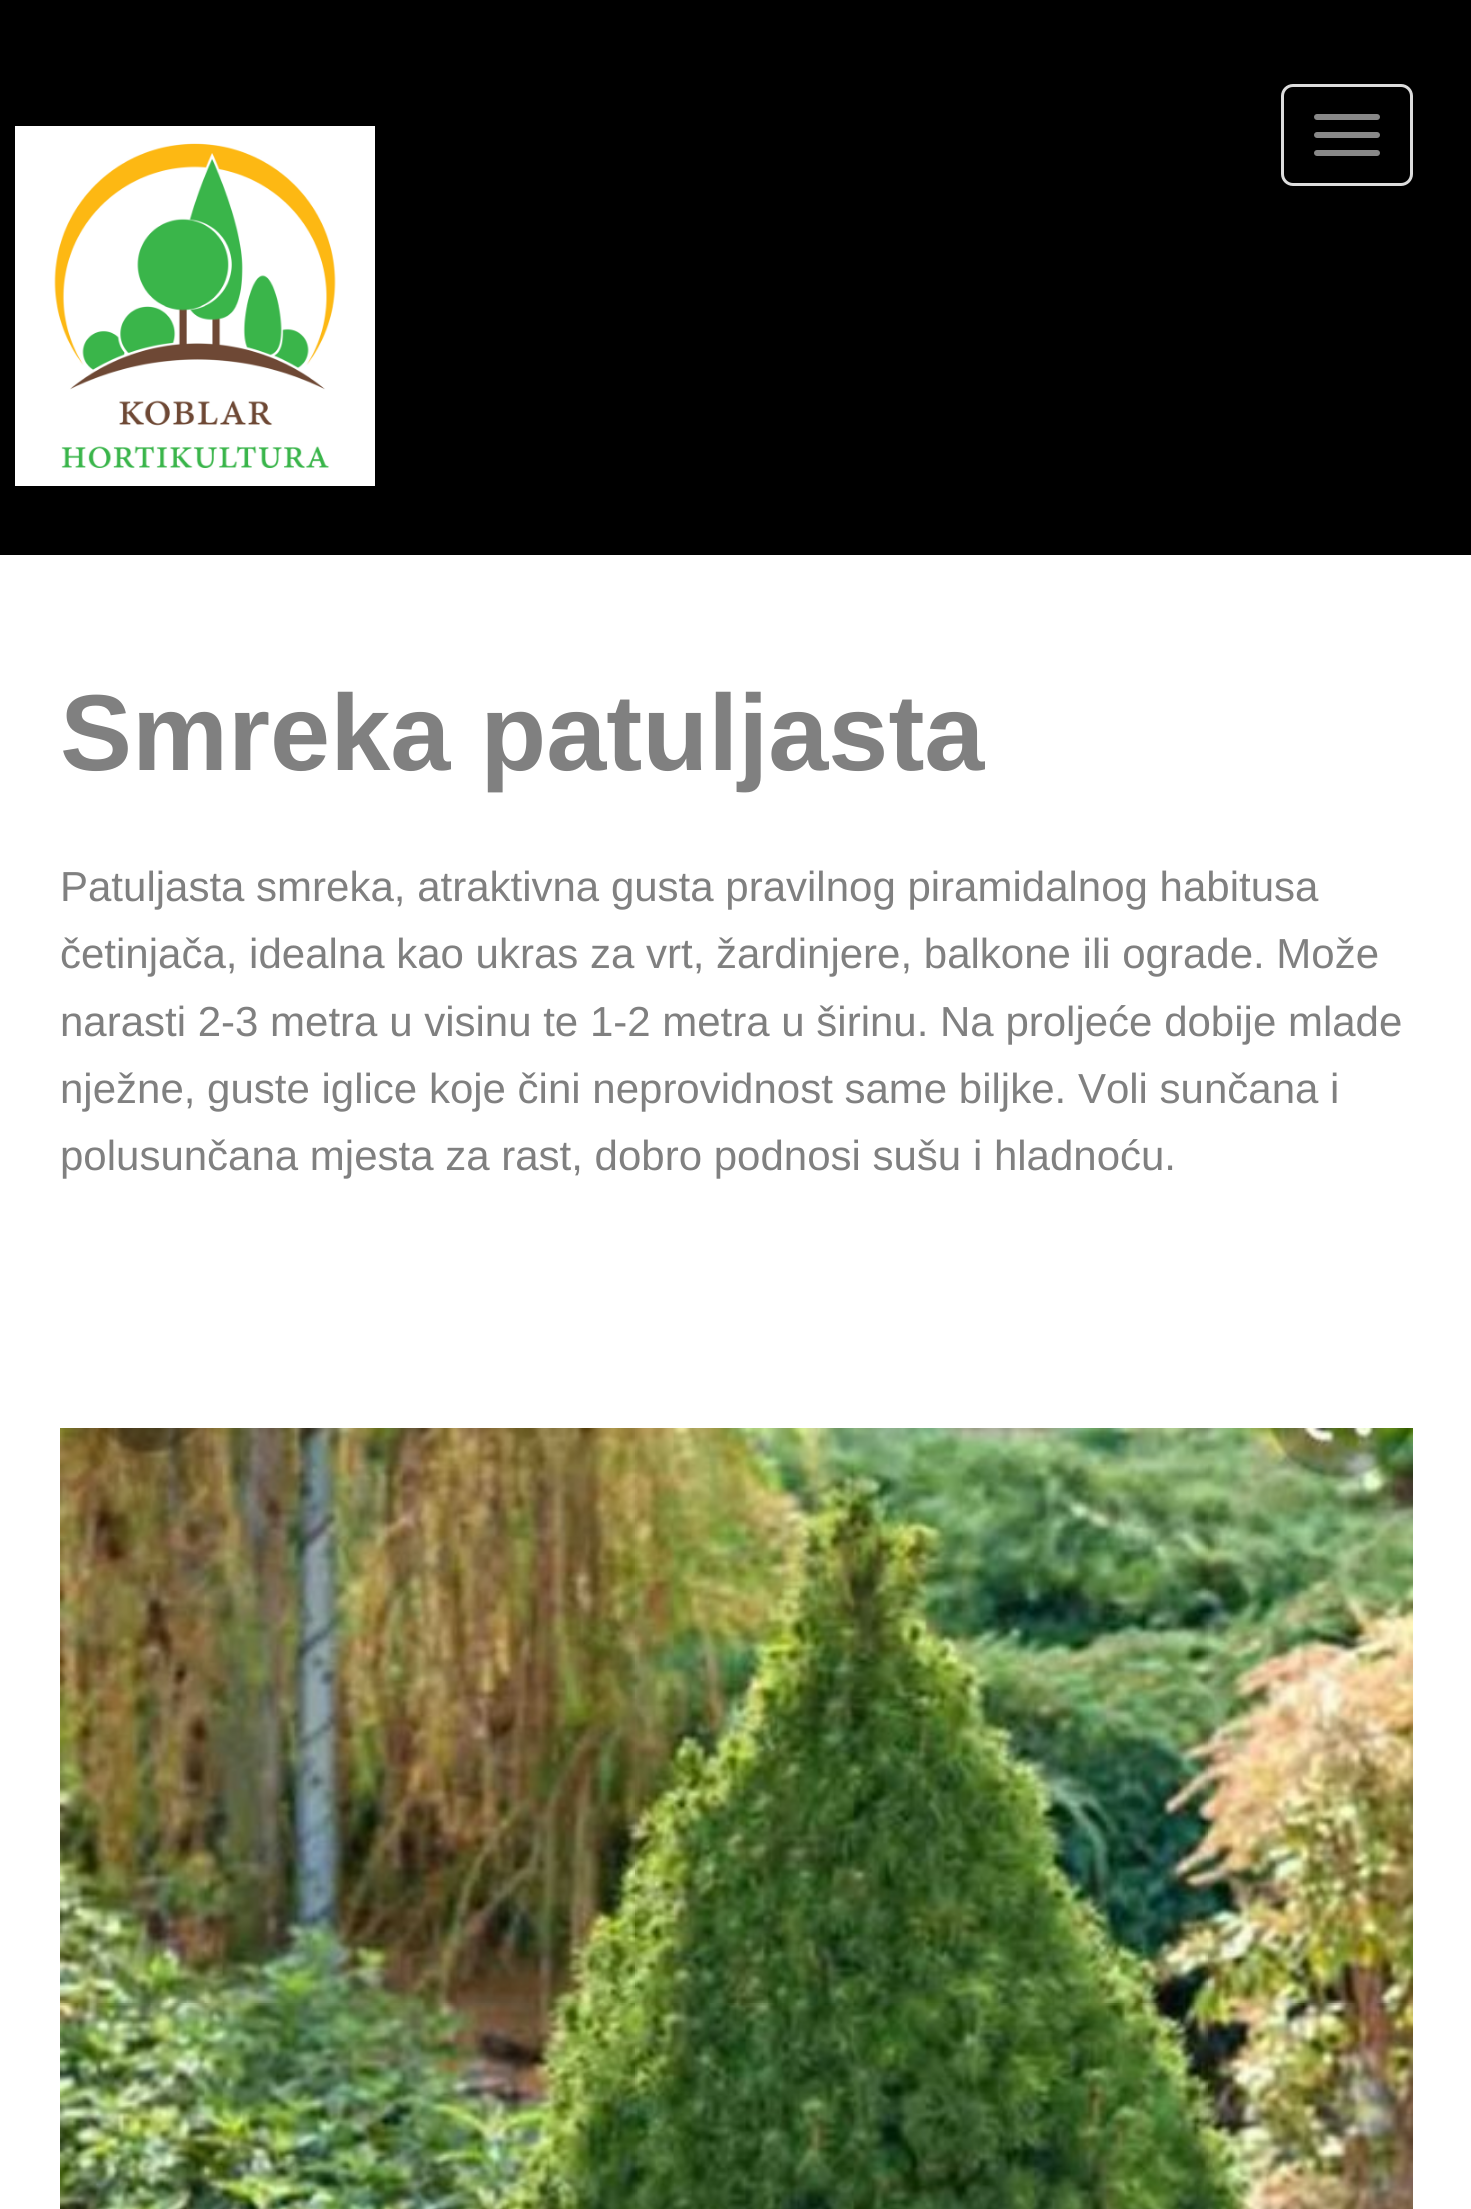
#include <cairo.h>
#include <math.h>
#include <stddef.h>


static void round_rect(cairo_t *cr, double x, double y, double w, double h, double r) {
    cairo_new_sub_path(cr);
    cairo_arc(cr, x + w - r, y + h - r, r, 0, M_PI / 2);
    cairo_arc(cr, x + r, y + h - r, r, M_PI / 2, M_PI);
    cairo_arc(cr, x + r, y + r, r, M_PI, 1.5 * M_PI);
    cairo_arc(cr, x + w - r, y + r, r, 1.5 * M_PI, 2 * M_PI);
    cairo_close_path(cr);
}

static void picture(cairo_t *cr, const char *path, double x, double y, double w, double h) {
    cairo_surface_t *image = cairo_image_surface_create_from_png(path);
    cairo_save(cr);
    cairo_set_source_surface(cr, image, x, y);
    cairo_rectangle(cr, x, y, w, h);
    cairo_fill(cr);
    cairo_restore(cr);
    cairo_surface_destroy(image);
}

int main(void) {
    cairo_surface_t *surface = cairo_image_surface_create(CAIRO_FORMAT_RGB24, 1471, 2209);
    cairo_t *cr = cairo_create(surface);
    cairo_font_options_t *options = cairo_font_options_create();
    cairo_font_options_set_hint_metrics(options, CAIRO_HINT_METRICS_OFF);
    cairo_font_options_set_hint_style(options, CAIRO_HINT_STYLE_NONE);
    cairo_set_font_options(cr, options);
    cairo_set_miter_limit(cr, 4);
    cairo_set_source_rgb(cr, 0, 0, 0);
    cairo_paint(cr);
    picture(cr, "img1.png", 15, 126, 360, 360);
    round_rect(cr, 1282.5, 85.5, 129, 99, 10.5);
    cairo_set_source_rgb(cr, 0.867, 0.867, 0.867);
    cairo_set_line_width(cr, 3);
    cairo_stroke(cr);
    cairo_set_source_rgb(cr, 0.533, 0.533, 0.533);
    round_rect(cr, 1314, 114, 66, 6, 3);
    cairo_fill(cr);
    round_rect(cr, 1314, 132, 66, 6, 3);
    cairo_fill(cr);
    round_rect(cr, 1314, 150, 66, 6, 3);
    cairo_fill(cr);
    cairo_set_source_rgb(cr, 1, 1, 1);
    cairo_rectangle(cr, 0, 555, 1471, 1654);
    cairo_fill(cr);
    cairo_select_font_face(cr, "Liberation Sans", CAIRO_FONT_SLANT_NORMAL, CAIRO_FONT_WEIGHT_BOLD);
    cairo_set_font_size(cr, 108);
    cairo_set_source_rgb(cr, 0.502, 0.502, 0.502);
    cairo_move_to(cr, 60, 770);
    cairo_show_text(cr, "Smreka patuljasta");
    cairo_select_font_face(cr, "Liberation Sans", CAIRO_FONT_SLANT_NORMAL, CAIRO_FONT_WEIGHT_NORMAL);
    cairo_set_font_size(cr, 42);
    cairo_move_to(cr, 60, 901);
    cairo_show_text(cr, "Patuljasta smreka, atraktivna gusta pravilnog piramidalnog habitusa");
    cairo_move_to(cr, 60, 968);
    cairo_show_text(cr, "četinjača, idealna kao ukras za vrt, žardinjere, balkone ili ograde. Može");
    cairo_move_to(cr, 60, 1036);
    cairo_show_text(cr, "narasti 2-3 metra u visinu te 1-2 metra u širinu. Na proljeće dobije mlade");
    cairo_move_to(cr, 60, 1103);
    cairo_show_text(cr, "nježne, guste iglice koje čini neprovidnost same biljke. Voli sunčana i");
    cairo_move_to(cr, 60, 1170);
    cairo_show_text(cr, "polusunčana mjesta za rast, dobro podnosi sušu i hladnoću.");
    picture(cr, "img2.png", 60, 1428, 1353, 781);
    cairo_surface_write_to_png(surface, "page.png");
    cairo_font_options_destroy(options);
    cairo_destroy(cr);
    cairo_surface_destroy(surface);
    return 0;
}
